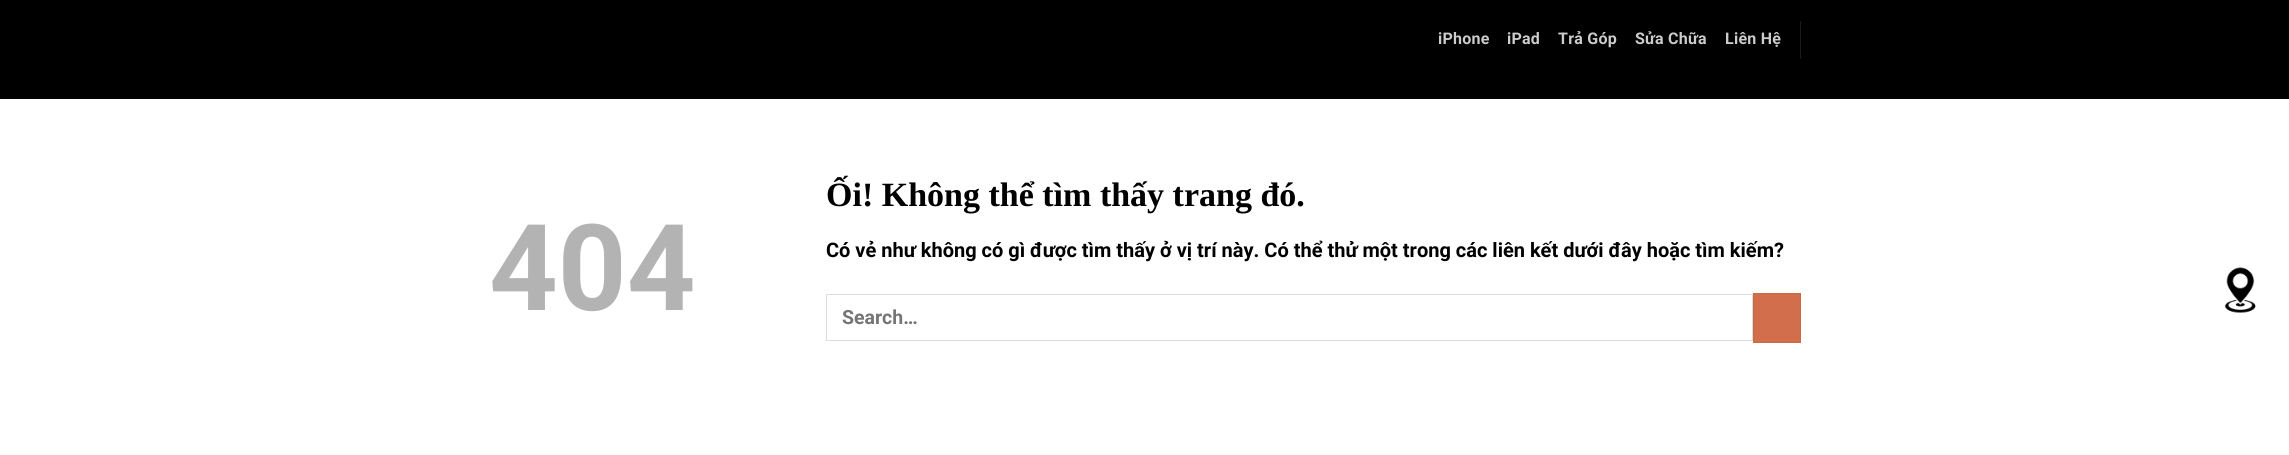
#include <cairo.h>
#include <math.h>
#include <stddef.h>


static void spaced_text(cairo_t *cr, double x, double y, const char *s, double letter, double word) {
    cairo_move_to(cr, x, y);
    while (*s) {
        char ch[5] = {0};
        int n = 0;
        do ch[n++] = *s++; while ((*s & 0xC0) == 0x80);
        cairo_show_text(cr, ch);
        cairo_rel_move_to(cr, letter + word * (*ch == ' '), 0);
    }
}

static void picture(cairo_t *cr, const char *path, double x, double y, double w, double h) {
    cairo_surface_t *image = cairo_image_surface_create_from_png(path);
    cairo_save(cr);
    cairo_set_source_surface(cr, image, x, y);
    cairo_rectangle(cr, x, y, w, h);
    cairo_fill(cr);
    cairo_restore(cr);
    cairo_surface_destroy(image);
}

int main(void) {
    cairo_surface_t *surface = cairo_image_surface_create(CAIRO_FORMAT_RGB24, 2289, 455);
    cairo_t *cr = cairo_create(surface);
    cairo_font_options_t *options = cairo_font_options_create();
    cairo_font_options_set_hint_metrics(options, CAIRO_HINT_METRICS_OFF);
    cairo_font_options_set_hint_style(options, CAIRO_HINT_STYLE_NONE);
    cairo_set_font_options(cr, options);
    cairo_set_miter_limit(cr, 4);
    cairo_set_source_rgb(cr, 1, 1, 1);
    cairo_paint(cr);
    cairo_set_source_rgb(cr, 0, 0, 0);
    cairo_rectangle(cr, 0, 0, 2289, 99);
    cairo_fill(cr);
    cairo_select_font_face(cr, "Roboto", CAIRO_FONT_SLANT_NORMAL, CAIRO_FONT_WEIGHT_BOLD);
    cairo_set_font_size(cr, 16);
    cairo_set_source_rgb(cr, 0.8, 0.8, 0.8);
    spaced_text(cr, 1438, 44, "iPhone", 0.25, 0);
    spaced_text(cr, 1507, 44, "iPad", 0.25, 0);
    spaced_text(cr, 1558, 44, "Trả Góp", 0.25, 0);
    spaced_text(cr, 1635, 44, "Sửa Chữa", 0.25, 0);
    spaced_text(cr, 1725, 44, "Liên Hệ", 0.25, 0);
    cairo_set_source_rgb(cr, 0.102, 0.102, 0.102);
    cairo_rectangle(cr, 1800, 21, 1, 38);
    cairo_fill(cr);
    cairo_set_font_size(cr, 120);
    cairo_set_source_rgb(cr, 0.702, 0.702, 0.702);
    cairo_move_to(cr, 489, 310);
    cairo_show_text(cr, "404");
    cairo_select_font_face(cr, "Liberation Serif", CAIRO_FONT_SLANT_NORMAL, CAIRO_FONT_WEIGHT_BOLD);
    cairo_set_font_size(cr, 34);
    cairo_set_source_rgb(cr, 0, 0, 0);
    cairo_move_to(cr, 826, 206);
    cairo_show_text(cr, "Ối! Không thể tìm thấy trang đó.");
    cairo_select_font_face(cr, "Roboto", CAIRO_FONT_SLANT_NORMAL, CAIRO_FONT_WEIGHT_BOLD);
    cairo_set_font_size(cr, 20);
    cairo_move_to(cr, 826, 257);
    cairo_show_text(cr, "Có vẻ như không có gì được tìm thấy ở vị trí này. Có thể thử một trong các liên kết dưới đây hoặc tìm kiếm?");
    cairo_rectangle(cr, 826.5, 294.5, 926, 46);
    cairo_set_source_rgb(cr, 0.867, 0.867, 0.867);
    cairo_set_line_width(cr, 1);
    cairo_stroke(cr);
    cairo_set_font_size(cr, 19.5);
    cairo_set_source_rgb(cr, 0.459, 0.459, 0.459);
    cairo_move_to(cr, 842, 324);
    cairo_show_text(cr, "Search…");
    cairo_set_source_rgb(cr, 0.824, 0.431, 0.294);
    cairo_rectangle(cr, 1753.5, 293.5, 47, 49);
    cairo_fill_preserve(cr);
    cairo_set_source_rgb(cr, 0.784, 0.412, 0.278);
    cairo_stroke(cr);
    picture(cr, "img1.png", 2225, 267, 31, 46);
    cairo_surface_write_to_png(surface, "page.png");
    cairo_font_options_destroy(options);
    cairo_destroy(cr);
    cairo_surface_destroy(surface);
    return 0;
}
